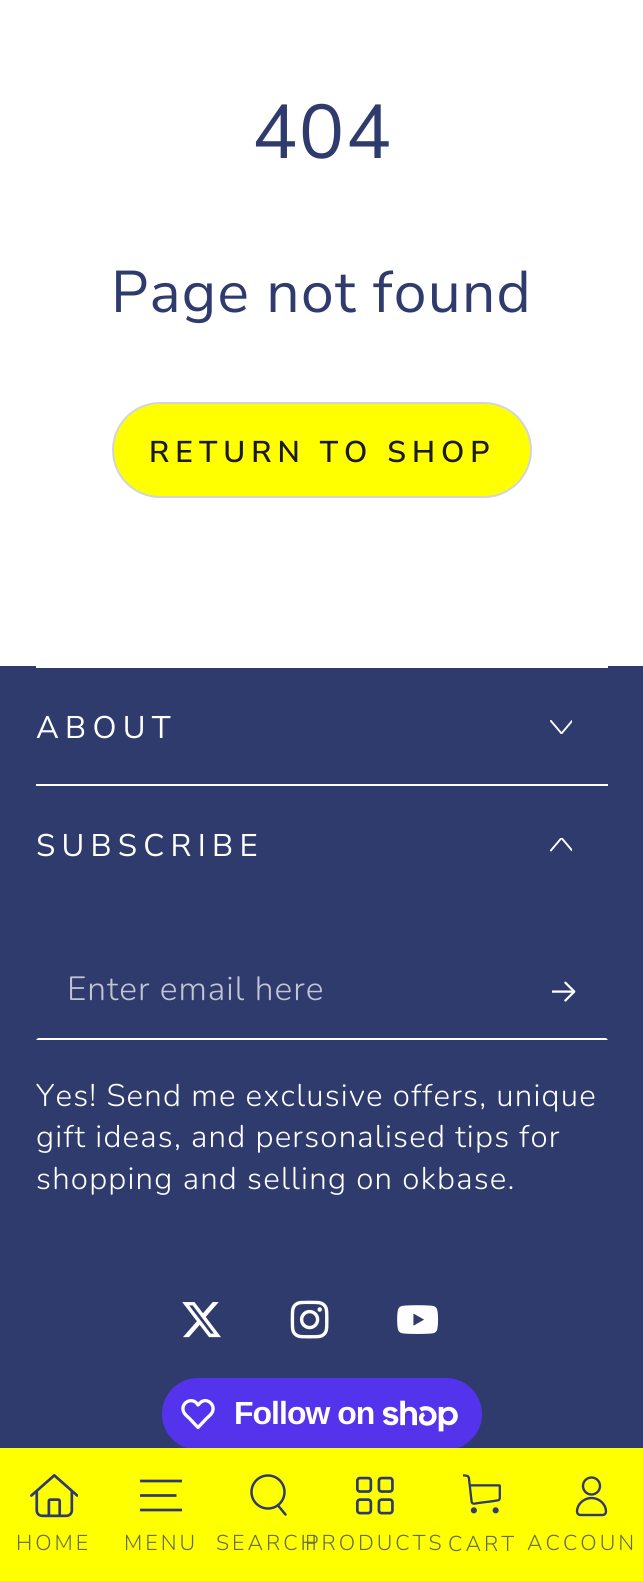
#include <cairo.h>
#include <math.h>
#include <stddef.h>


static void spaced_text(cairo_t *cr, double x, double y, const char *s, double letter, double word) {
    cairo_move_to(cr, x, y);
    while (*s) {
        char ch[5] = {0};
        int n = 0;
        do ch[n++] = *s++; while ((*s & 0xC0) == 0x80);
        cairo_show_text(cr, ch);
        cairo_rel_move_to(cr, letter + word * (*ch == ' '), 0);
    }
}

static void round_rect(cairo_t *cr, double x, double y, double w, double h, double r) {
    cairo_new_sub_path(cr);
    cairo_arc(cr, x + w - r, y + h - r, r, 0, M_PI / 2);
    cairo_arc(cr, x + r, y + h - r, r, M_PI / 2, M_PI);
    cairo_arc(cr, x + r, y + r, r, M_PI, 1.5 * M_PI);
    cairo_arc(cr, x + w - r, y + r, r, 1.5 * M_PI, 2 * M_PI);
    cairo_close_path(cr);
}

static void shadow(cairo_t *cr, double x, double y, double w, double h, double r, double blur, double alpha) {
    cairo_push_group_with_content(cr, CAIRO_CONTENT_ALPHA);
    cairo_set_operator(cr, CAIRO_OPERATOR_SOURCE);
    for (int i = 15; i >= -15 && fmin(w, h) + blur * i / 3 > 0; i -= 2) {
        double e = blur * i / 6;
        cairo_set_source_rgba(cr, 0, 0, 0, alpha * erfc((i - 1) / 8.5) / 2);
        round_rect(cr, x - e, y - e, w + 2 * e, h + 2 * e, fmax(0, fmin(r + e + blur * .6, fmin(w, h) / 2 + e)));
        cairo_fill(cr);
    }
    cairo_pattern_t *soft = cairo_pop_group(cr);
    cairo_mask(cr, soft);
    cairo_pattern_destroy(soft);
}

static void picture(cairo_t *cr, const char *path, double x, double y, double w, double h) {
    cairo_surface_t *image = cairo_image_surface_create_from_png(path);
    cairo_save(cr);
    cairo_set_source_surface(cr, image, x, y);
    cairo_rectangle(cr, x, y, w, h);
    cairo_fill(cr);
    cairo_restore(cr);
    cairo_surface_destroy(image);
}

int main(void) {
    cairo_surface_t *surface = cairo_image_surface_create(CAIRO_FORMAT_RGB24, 643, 1581);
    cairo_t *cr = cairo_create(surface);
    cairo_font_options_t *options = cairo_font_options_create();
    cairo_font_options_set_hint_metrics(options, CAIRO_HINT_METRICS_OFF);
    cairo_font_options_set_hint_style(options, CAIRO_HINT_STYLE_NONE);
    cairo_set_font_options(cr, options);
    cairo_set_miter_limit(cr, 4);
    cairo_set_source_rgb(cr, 1, 1, 1);
    cairo_paint(cr);
    cairo_select_font_face(cr, "Nunito Sans", CAIRO_FONT_SLANT_NORMAL, CAIRO_FONT_WEIGHT_NORMAL);
    cairo_set_font_size(cr, 76);
    cairo_set_source_rgb(cr, 0.184, 0.231, 0.427);
    spaced_text(cr, 252, 158, "404", 1.25, 0);
    cairo_set_font_size(cr, 58.75);
    spaced_text(cr, 111, 312, "Page not found", 1.25, 0);
    cairo_set_source_rgb(cr, 1, 1, 0);
    round_rect(cr, 113, 403, 418, 94, 47);
    cairo_fill_preserve(cr);
    cairo_set_source_rgb(cr, 0.824, 0.835, 0.851);
    cairo_stroke(cr);
    cairo_select_font_face(cr, "Nunito Sans SemiBold", CAIRO_FONT_SLANT_NORMAL, CAIRO_FONT_WEIGHT_NORMAL);
    cairo_set_font_size(cr, 30);
    cairo_set_source_rgb(cr, 0.102, 0.106, 0.094);
    spaced_text(cr, 149, 462, "RETURN TO SHOP", 6, 0);
    cairo_set_source_rgb(cr, 0.184, 0.231, 0.427);
    cairo_rectangle(cr, 0, 666, 643, 782);
    cairo_fill(cr);
    cairo_set_source_rgb(cr, 1, 1, 1);
    cairo_rectangle(cr, 36, 666, 572, 2);
    cairo_fill(cr);
    cairo_rectangle(cr, 36, 784, 572, 2);
    cairo_fill(cr);
    cairo_select_font_face(cr, "Nunito Sans", CAIRO_FONT_SLANT_NORMAL, CAIRO_FONT_WEIGHT_NORMAL);
    cairo_set_font_size(cr, 31.25);
    spaced_text(cr, 36, 738, "ABOUT", 6.25, 0);
    picture(cr, "img1.png", 550, 720, 22, 14);
    spaced_text(cr, 36, 856, "SUBSCRIBE", 6.25, 0);
    picture(cr, "img2.png", 550, 838, 22, 14);
    cairo_new_path(cr);
    cairo_move_to(cr, 608, 1040);
    cairo_line_to(cr, 36, 1040);
    cairo_line_to(cr, 38, 1038);
    cairo_line_to(cr, 606, 1038);
    cairo_close_path(cr);
    cairo_fill(cr);
    cairo_select_font_face(cr, "Nunito Light", CAIRO_FONT_SLANT_NORMAL, CAIRO_FONT_WEIGHT_NORMAL);
    cairo_set_font_size(cr, 33.5);
    cairo_set_source_rgb(cr, 0.757, 0.769, 0.827);
    spaced_text(cr, 67, 1000, "Enter email here", 1, 0);
    picture(cr, "img3.png", 552, 981, 24, 21);
    cairo_set_font_size(cr, 31.25);
    cairo_set_source_rgb(cr, 1, 1, 1);
    spaced_text(cr, 36, 1106, "Yes! Send me exclusive offers, unique", 1.2, 0);
    spaced_text(cr, 36, 1147, "gift ideas, and personalised tips for", 1.2, 0);
    spaced_text(cr, 36, 1189, "shopping and selling on okbase.", 1.2, 0);
    picture(cr, "img4.png", 182, 1302, 39, 36);
    picture(cr, "img5.png", 290, 1300, 39, 39);
    picture(cr, "img6.png", 397, 1305, 42, 29);
    cairo_set_source_rgb(cr, 0.329, 0.2, 0.922);
    round_rect(cr, 162, 1378, 320, 72, 36);
    cairo_fill(cr);
    cairo_new_path(cr);
    cairo_move_to(cr, 196.5, 1403);
    cairo_line_to(cr, 198, 1405);
    cairo_curve_to(cr, 199.5, 1403.5, 201, 1401.5, 203, 1401);
    cairo_curve_to(cr, 209, 1399, 215, 1405.5, 212.5, 1411.5);
    cairo_curve_to(cr, 211.5, 1414.5, 208.5, 1416.5, 206.5, 1418.5);
    cairo_line_to(cr, 198, 1427.5);
    cairo_line_to(cr, 189.5, 1418.5);
    cairo_curve_to(cr, 187.5, 1416.5, 184.5, 1414.5, 183.5, 1411.5);
    cairo_curve_to(cr, 180.5, 1403.5, 190.5, 1397, 196.5, 1403);
    cairo_close_path(cr);
    cairo_set_source_rgb(cr, 1, 1, 1);
    cairo_set_line_width(cr, 3.3);
    cairo_set_line_join(cr, CAIRO_LINE_JOIN_ROUND);
    cairo_stroke(cr);
    cairo_select_font_face(cr, "Liberation Sans", CAIRO_FONT_SLANT_NORMAL, CAIRO_FONT_WEIGHT_BOLD);
    cairo_set_font_size(cr, 32);
    spaced_text(cr, 234, 1424, "Follow on", -1, 0);
    picture(cr, "img7.png", 383, 1400, 75, 32);
    cairo_set_source_rgb(cr, 0.184, 0.231, 0.427);
    shadow(cr, 0, 1450, 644, 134, 0, 9.5, 0.15);
    cairo_set_source_rgb(cr, 1, 1, 0);
    cairo_rectangle(cr, 0, 1448, 643, 133);
    cairo_fill(cr);
    picture(cr, "img8.png", 30, 1474, 48, 44);
    cairo_select_font_face(cr, "Nunito Light", CAIRO_FONT_SLANT_NORMAL, CAIRO_FONT_WEIGHT_NORMAL);
    cairo_set_font_size(cr, 21.5);
    cairo_set_source_rgb(cr, 0.388, 0.424, 0.322);
    spaced_text(cr, 16, 1550, "HOME", 3, 0);
    cairo_save(cr);
    cairo_rectangle(cr, 140, 1474, 42, 44);
    cairo_clip(cr);
    cairo_new_path(cr);
    cairo_move_to(cr, 140, 1510);
    cairo_line_to(cr, 183, 1510);
    cairo_move_to(cr, 140, 1495.5);
    cairo_line_to(cr, 176.5, 1495.5);
    cairo_move_to(cr, 140, 1481);
    cairo_line_to(cr, 183, 1481);
    cairo_set_source_rgb(cr, 0.184, 0.231, 0.427);
    cairo_set_line_width(cr, 2.7);
    cairo_set_line_join(cr, CAIRO_LINE_JOIN_MITER);
    cairo_stroke(cr);
    cairo_restore(cr);
    spaced_text(cr, 124, 1550, "MENU", 3, 0);
    cairo_new_path(cr);
    cairo_arc(cr, 268, 1492, 16.5, 0, 2 * M_PI);
    cairo_set_source_rgb(cr, 0.184, 0.231, 0.427);
    cairo_set_line_width(cr, 2.5);
    cairo_set_line_join(cr, CAIRO_LINE_JOIN_MITER);
    cairo_stroke(cr);
    cairo_new_path(cr);
    cairo_move_to(cr, 278, 1505.5);
    cairo_line_to(cr, 285.5, 1514.5);
    cairo_set_line_cap(cr, CAIRO_LINE_CAP_ROUND);
    cairo_stroke(cr);
    cairo_set_source_rgb(cr, 0.388, 0.424, 0.322);
    spaced_text(cr, 216, 1550, "SEARCH", 3, 0);
    picture(cr, "img9.png", 356, 1476, 38, 39);
    spaced_text(cr, 305, 1550, "PRODUCTS", 3, 0);
    picture(cr, "img10.png", 462, 1474, 39, 40);
    spaced_text(cr, 448, 1551, "CART", 3, 0);
    cairo_new_path(cr);
    cairo_move_to(cr, 591.5, 1498);
    cairo_curve_to(cr, 583.5, 1498, 577, 1504.5, 577, 1511.5);
    cairo_curve_to(cr, 577, 1513.5, 578.5, 1515, 580.5, 1515);
    cairo_line_to(cr, 602.5, 1515);
    cairo_curve_to(cr, 604.5, 1515, 606, 1513.5, 606, 1511.5);
    cairo_curve_to(cr, 606, 1504.5, 599.5, 1498, 591.5, 1498);
    cairo_close_path(cr);
    cairo_set_source_rgb(cr, 0.184, 0.231, 0.427);
    cairo_set_line_width(cr, 2.4);
    cairo_set_line_cap(cr, CAIRO_LINE_CAP_BUTT);
    cairo_stroke(cr);
    cairo_arc(cr, 591.5, 1486, 8.5, 0, 2 * M_PI);
    cairo_stroke(cr);
    cairo_set_source_rgb(cr, 0.388, 0.424, 0.322);
    spaced_text(cr, 527, 1550, "ACCOUN", 3, 0);
    cairo_surface_write_to_png(surface, "page.png");
    cairo_font_options_destroy(options);
    cairo_destroy(cr);
    cairo_surface_destroy(surface);
    return 0;
}
